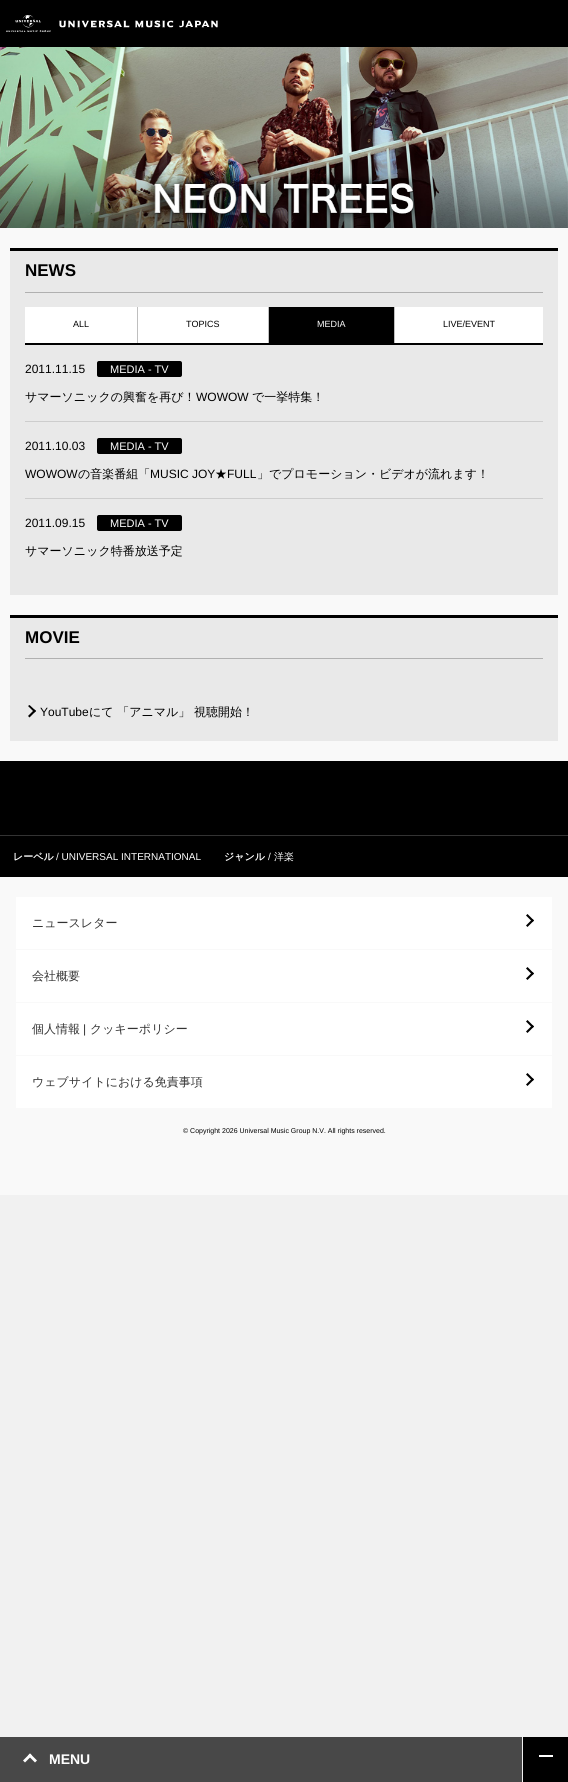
#include <cairo.h>
#include <math.h>
#include <stddef.h>


static void round_rect(cairo_t *cr, double x, double y, double w, double h, double r) {
    cairo_new_sub_path(cr);
    cairo_arc(cr, x + w - r, y + h - r, r, 0, M_PI / 2);
    cairo_arc(cr, x + r, y + h - r, r, M_PI / 2, M_PI);
    cairo_arc(cr, x + r, y + r, r, M_PI, 1.5 * M_PI);
    cairo_arc(cr, x + w - r, y + r, r, 1.5 * M_PI, 2 * M_PI);
    cairo_close_path(cr);
}

static void picture(cairo_t *cr, const char *path, double x, double y, double w, double h) {
    cairo_surface_t *image = cairo_image_surface_create_from_png(path);
    cairo_save(cr);
    cairo_set_source_surface(cr, image, x, y);
    cairo_rectangle(cr, x, y, w, h);
    cairo_fill(cr);
    cairo_restore(cr);
    cairo_surface_destroy(image);
}

int main(void) {
    cairo_surface_t *surface = cairo_image_surface_create(CAIRO_FORMAT_RGB24, 568, 1782);
    cairo_t *cr = cairo_create(surface);
    cairo_font_options_t *options = cairo_font_options_create();
    cairo_font_options_set_hint_metrics(options, CAIRO_HINT_METRICS_OFF);
    cairo_font_options_set_hint_style(options, CAIRO_HINT_STYLE_NONE);
    cairo_set_font_options(cr, options);
    cairo_set_miter_limit(cr, 4);
    cairo_set_source_rgb(cr, 0.945, 0.945, 0.945);
    cairo_paint(cr);
    cairo_set_source_rgb(cr, 0, 0, 0);
    cairo_rectangle(cr, 0, 0, 568, 47);
    cairo_fill(cr);
    picture(cr, "img1.png", 6, 15, 212, 17);
    cairo_set_source_rgb(cr, 0.973, 0.973, 0.973);
    cairo_rectangle(cr, 0, 47, 568, 1148);
    cairo_fill(cr);
    picture(cr, "img2.png", 0, 47, 568, 181);
    cairo_set_source_rgb(cr, 0, 0, 0);
    cairo_rectangle(cr, 10, 248, 548, 3);
    cairo_fill(cr);
    cairo_set_source_rgb(cr, 0.914, 0.914, 0.914);
    cairo_rectangle(cr, 10, 251, 548, 344);
    cairo_fill(cr);
    cairo_set_source_rgb(cr, 0.69, 0.69, 0.69);
    cairo_rectangle(cr, 25, 292, 518, 1);
    cairo_fill(cr);
    cairo_select_font_face(cr, "Liberation Sans", CAIRO_FONT_SLANT_NORMAL, CAIRO_FONT_WEIGHT_BOLD);
    cairo_set_font_size(cr, 17);
    cairo_set_source_rgb(cr, 0, 0, 0);
    cairo_move_to(cr, 25, 276);
    cairo_show_text(cr, "NEWS");
    cairo_rectangle(cr, 25, 343, 518, 2);
    cairo_fill(cr);
    cairo_set_source_rgb(cr, 1, 1, 1);
    cairo_rectangle(cr, 25, 307, 112, 36);
    cairo_fill(cr);
    cairo_select_font_face(cr, "Liberation Sans", CAIRO_FONT_SLANT_NORMAL, CAIRO_FONT_WEIGHT_NORMAL);
    cairo_set_font_size(cr, 9);
    cairo_set_source_rgb(cr, 0, 0, 0);
    cairo_move_to(cr, 73, 327);
    cairo_show_text(cr, "ALL");
    cairo_set_source_rgb(cr, 0.749, 0.749, 0.749);
    cairo_rectangle(cr, 137, 307, 1, 36);
    cairo_fill(cr);
    cairo_set_source_rgb(cr, 1, 1, 1);
    cairo_rectangle(cr, 138, 307, 130, 36);
    cairo_fill(cr);
    cairo_set_source_rgb(cr, 0, 0, 0);
    cairo_move_to(cr, 186, 327);
    cairo_show_text(cr, "TOPICS");
    cairo_set_source_rgb(cr, 0.749, 0.749, 0.749);
    cairo_rectangle(cr, 268, 307, 1, 36);
    cairo_fill(cr);
    cairo_set_source_rgb(cr, 0, 0, 0);
    cairo_rectangle(cr, 269, 307, 125, 36);
    cairo_fill(cr);
    cairo_set_source_rgb(cr, 1, 1, 1);
    cairo_move_to(cr, 317, 327);
    cairo_show_text(cr, "MEDIA");
    cairo_set_source_rgb(cr, 0.749, 0.749, 0.749);
    cairo_rectangle(cr, 394, 307, 1, 36);
    cairo_fill(cr);
    cairo_set_source_rgb(cr, 1, 1, 1);
    cairo_rectangle(cr, 395, 307, 148, 36);
    cairo_fill(cr);
    cairo_set_source_rgb(cr, 0, 0, 0);
    cairo_move_to(cr, 443, 327);
    cairo_show_text(cr, "LIVE/EVENT");
    cairo_set_font_size(cr, 12);
    cairo_move_to(cr, 25, 373);
    cairo_show_text(cr, "2011.11.15");
    round_rect(cr, 97, 361, 85, 16, 2);
    cairo_fill(cr);
    cairo_set_font_size(cr, 11);
    cairo_set_source_rgb(cr, 1, 1, 1);
    cairo_move_to(cr, 110, 373);
    cairo_show_text(cr, "MEDIA - TV");
    cairo_select_font_face(cr, "WenQuanYi Zen Hei Medium", CAIRO_FONT_SLANT_NORMAL, CAIRO_FONT_WEIGHT_NORMAL);
    cairo_set_font_size(cr, 12);
    cairo_set_source_rgb(cr, 0, 0, 0);
    cairo_move_to(cr, 25, 401);
    cairo_show_text(cr, "サマーソニックの興奮を再び！");
    cairo_select_font_face(cr, "Liberation Sans", CAIRO_FONT_SLANT_NORMAL, CAIRO_FONT_WEIGHT_NORMAL);
    cairo_move_to(cr, 196, 401);
    cairo_show_text(cr, "WOWOW");
    cairo_select_font_face(cr, "WenQuanYi Zen Hei Medium", CAIRO_FONT_SLANT_NORMAL, CAIRO_FONT_WEIGHT_NORMAL);
    cairo_move_to(cr, 252, 401);
    cairo_show_text(cr, "で一挙特集！");
    cairo_set_source_rgb(cr, 0.804, 0.804, 0.804);
    cairo_rectangle(cr, 25, 421, 518, 1);
    cairo_fill(cr);
    cairo_select_font_face(cr, "Liberation Sans", CAIRO_FONT_SLANT_NORMAL, CAIRO_FONT_WEIGHT_NORMAL);
    cairo_set_source_rgb(cr, 0, 0, 0);
    cairo_move_to(cr, 25, 450);
    cairo_show_text(cr, "2011.10.03");
    round_rect(cr, 97, 438, 85, 16, 2);
    cairo_fill(cr);
    cairo_set_font_size(cr, 11);
    cairo_set_source_rgb(cr, 1, 1, 1);
    cairo_move_to(cr, 110, 450);
    cairo_show_text(cr, "MEDIA - TV");
    cairo_set_font_size(cr, 12);
    cairo_set_source_rgb(cr, 0, 0, 0);
    cairo_move_to(cr, 25, 478);
    cairo_show_text(cr, "WOWOW");
    cairo_select_font_face(cr, "WenQuanYi Zen Hei Medium", CAIRO_FONT_SLANT_NORMAL, CAIRO_FONT_WEIGHT_NORMAL);
    cairo_move_to(cr, 78, 478);
    cairo_show_text(cr, "の音楽番組「");
    cairo_select_font_face(cr, "Liberation Sans", CAIRO_FONT_SLANT_NORMAL, CAIRO_FONT_WEIGHT_NORMAL);
    cairo_move_to(cr, 150, 478);
    cairo_show_text(cr, "MUSIC JOY");
    cairo_select_font_face(cr, "WenQuanYi Zen Hei Medium", CAIRO_FONT_SLANT_NORMAL, CAIRO_FONT_WEIGHT_NORMAL);
    cairo_move_to(cr, 215, 478);
    cairo_show_text(cr, "★");
    cairo_select_font_face(cr, "Liberation Sans", CAIRO_FONT_SLANT_NORMAL, CAIRO_FONT_WEIGHT_NORMAL);
    cairo_move_to(cr, 227, 478);
    cairo_show_text(cr, "FULL");
    cairo_select_font_face(cr, "WenQuanYi Zen Hei Medium", CAIRO_FONT_SLANT_NORMAL, CAIRO_FONT_WEIGHT_NORMAL);
    cairo_move_to(cr, 257, 478);
    cairo_show_text(cr, "」でプロモーション・ビデオが流れます！");
    cairo_set_source_rgb(cr, 0.804, 0.804, 0.804);
    cairo_rectangle(cr, 25, 498, 518, 1);
    cairo_fill(cr);
    cairo_select_font_face(cr, "Liberation Sans", CAIRO_FONT_SLANT_NORMAL, CAIRO_FONT_WEIGHT_NORMAL);
    cairo_set_source_rgb(cr, 0, 0, 0);
    cairo_move_to(cr, 25, 527);
    cairo_show_text(cr, "2011.09.15");
    round_rect(cr, 97, 515, 85, 16, 2);
    cairo_fill(cr);
    cairo_set_font_size(cr, 11);
    cairo_set_source_rgb(cr, 1, 1, 1);
    cairo_move_to(cr, 110, 527);
    cairo_show_text(cr, "MEDIA - TV");
    cairo_select_font_face(cr, "WenQuanYi Zen Hei Medium", CAIRO_FONT_SLANT_NORMAL, CAIRO_FONT_WEIGHT_NORMAL);
    cairo_set_font_size(cr, 12);
    cairo_set_source_rgb(cr, 0, 0, 0);
    cairo_move_to(cr, 25, 555);
    cairo_show_text(cr, "サマーソニック特番放送予定");
    cairo_rectangle(cr, 10, 615, 548, 3);
    cairo_fill(cr);
    cairo_set_source_rgb(cr, 0.914, 0.914, 0.914);
    cairo_rectangle(cr, 10, 618, 548, 123);
    cairo_fill(cr);
    cairo_set_source_rgb(cr, 0.69, 0.69, 0.69);
    cairo_rectangle(cr, 25, 658, 518, 1);
    cairo_fill(cr);
    cairo_select_font_face(cr, "Liberation Sans", CAIRO_FONT_SLANT_NORMAL, CAIRO_FONT_WEIGHT_BOLD);
    cairo_set_font_size(cr, 17);
    cairo_set_source_rgb(cr, 0, 0, 0);
    cairo_move_to(cr, 25, 643);
    cairo_show_text(cr, "MOVIE");
    cairo_new_path(cr);
    cairo_move_to(cr, 28, 706);
    cairo_line_to(cr, 29.5, 705);
    cairo_line_to(cr, 36, 711);
    cairo_line_to(cr, 34.5, 712.5);
    cairo_close_path(cr);
    cairo_fill(cr);
    cairo_new_path(cr);
    cairo_move_to(cr, 28, 716);
    cairo_line_to(cr, 34.5, 709.5);
    cairo_line_to(cr, 36, 711);
    cairo_line_to(cr, 29.5, 717.5);
    cairo_close_path(cr);
    cairo_fill(cr);
    cairo_select_font_face(cr, "Liberation Sans", CAIRO_FONT_SLANT_NORMAL, CAIRO_FONT_WEIGHT_NORMAL);
    cairo_set_font_size(cr, 12);
    cairo_move_to(cr, 40, 716);
    cairo_show_text(cr, "YouTube");
    cairo_select_font_face(cr, "WenQuanYi Zen Hei Medium", CAIRO_FONT_SLANT_NORMAL, CAIRO_FONT_WEIGHT_NORMAL);
    cairo_move_to(cr, 89, 716);
    cairo_show_text(cr, "にて 「アニマル」 視聴開始！");
    cairo_rectangle(cr, 0, 761, 568, 116);
    cairo_fill(cr);
    cairo_set_source_rgb(cr, 0.2, 0.2, 0.2);
    cairo_rectangle(cr, 0, 835, 568, 1);
    cairo_fill(cr);
    cairo_select_font_face(cr, "WenQuanYi Zen Hei", CAIRO_FONT_SLANT_NORMAL, CAIRO_FONT_WEIGHT_BOLD);
    cairo_set_font_size(cr, 10);
    cairo_set_source_rgb(cr, 1, 1, 1);
    cairo_move_to(cr, 13, 860);
    cairo_show_text(cr, "レーベル");
    cairo_select_font_face(cr, "Liberation Sans", CAIRO_FONT_SLANT_NORMAL, CAIRO_FONT_WEIGHT_NORMAL);
    cairo_move_to(cr, 56, 860);
    cairo_show_text(cr, "/ UNIVERSAL INTERNATIONAL");
    cairo_select_font_face(cr, "WenQuanYi Zen Hei", CAIRO_FONT_SLANT_NORMAL, CAIRO_FONT_WEIGHT_BOLD);
    cairo_move_to(cr, 224, 860);
    cairo_show_text(cr, "ジャンル");
    cairo_select_font_face(cr, "Liberation Sans", CAIRO_FONT_SLANT_NORMAL, CAIRO_FONT_WEIGHT_NORMAL);
    cairo_move_to(cr, 268, 860);
    cairo_show_text(cr, "/");
    cairo_select_font_face(cr, "WenQuanYi Zen Hei Medium", CAIRO_FONT_SLANT_NORMAL, CAIRO_FONT_WEIGHT_NORMAL);
    cairo_move_to(cr, 274, 860);
    cairo_show_text(cr, "洋楽");
    cairo_rectangle(cr, 16, 897, 536, 52);
    cairo_fill(cr);
    cairo_set_font_size(cr, 12);
    cairo_set_source_rgb(cr, 0.2, 0.2, 0.2);
    cairo_move_to(cr, 32, 927);
    cairo_show_text(cr, "ニュースレター");
    cairo_set_source_rgb(cr, 0, 0, 0);
    cairo_new_path(cr);
    cairo_move_to(cr, 526, 915.5);
    cairo_line_to(cr, 527.5, 914);
    cairo_line_to(cr, 534, 920.5);
    cairo_line_to(cr, 532.5, 922);
    cairo_close_path(cr);
    cairo_fill(cr);
    cairo_new_path(cr);
    cairo_move_to(cr, 526, 925.5);
    cairo_line_to(cr, 532.5, 919);
    cairo_line_to(cr, 534, 920.5);
    cairo_line_to(cr, 527.5, 927);
    cairo_close_path(cr);
    cairo_fill(cr);
    cairo_set_source_rgb(cr, 1, 1, 1);
    cairo_rectangle(cr, 16, 950, 536, 52);
    cairo_fill(cr);
    cairo_set_source_rgb(cr, 0.2, 0.2, 0.2);
    cairo_move_to(cr, 32, 980);
    cairo_show_text(cr, "会社概要");
    cairo_set_source_rgb(cr, 0, 0, 0);
    cairo_new_path(cr);
    cairo_move_to(cr, 526, 968.5);
    cairo_line_to(cr, 527.5, 967);
    cairo_line_to(cr, 534, 973.5);
    cairo_line_to(cr, 532.5, 975);
    cairo_close_path(cr);
    cairo_fill(cr);
    cairo_new_path(cr);
    cairo_move_to(cr, 526, 978.5);
    cairo_line_to(cr, 532.5, 972);
    cairo_line_to(cr, 534, 973.5);
    cairo_line_to(cr, 527.5, 980);
    cairo_close_path(cr);
    cairo_fill(cr);
    cairo_set_source_rgb(cr, 1, 1, 1);
    cairo_rectangle(cr, 16, 1003, 536, 52);
    cairo_fill(cr);
    cairo_set_source_rgb(cr, 0.2, 0.2, 0.2);
    cairo_move_to(cr, 32, 1033);
    cairo_show_text(cr, "個人情報");
    cairo_select_font_face(cr, "Liberation Sans", CAIRO_FONT_SLANT_NORMAL, CAIRO_FONT_WEIGHT_NORMAL);
    cairo_move_to(cr, 83, 1033);
    cairo_show_text(cr, "|");
    cairo_select_font_face(cr, "WenQuanYi Zen Hei Medium", CAIRO_FONT_SLANT_NORMAL, CAIRO_FONT_WEIGHT_NORMAL);
    cairo_move_to(cr, 90, 1033);
    cairo_show_text(cr, "クッキーポリシー");
    cairo_set_source_rgb(cr, 0, 0, 0);
    cairo_new_path(cr);
    cairo_move_to(cr, 526, 1021.5);
    cairo_line_to(cr, 527.5, 1020);
    cairo_line_to(cr, 534, 1026.5);
    cairo_line_to(cr, 532.5, 1028);
    cairo_close_path(cr);
    cairo_fill(cr);
    cairo_new_path(cr);
    cairo_move_to(cr, 526, 1031.5);
    cairo_line_to(cr, 532.5, 1025);
    cairo_line_to(cr, 534, 1026.5);
    cairo_line_to(cr, 527.5, 1033);
    cairo_close_path(cr);
    cairo_fill(cr);
    cairo_set_source_rgb(cr, 1, 1, 1);
    cairo_rectangle(cr, 16, 1056, 536, 52);
    cairo_fill(cr);
    cairo_set_source_rgb(cr, 0.2, 0.2, 0.2);
    cairo_move_to(cr, 32, 1086);
    cairo_show_text(cr, "ウェブサイトにおける免責事項");
    cairo_set_source_rgb(cr, 0, 0, 0);
    cairo_new_path(cr);
    cairo_move_to(cr, 526, 1074.5);
    cairo_line_to(cr, 527.5, 1073);
    cairo_line_to(cr, 534, 1079.5);
    cairo_line_to(cr, 532.5, 1081);
    cairo_close_path(cr);
    cairo_fill(cr);
    cairo_new_path(cr);
    cairo_move_to(cr, 526, 1084.5);
    cairo_line_to(cr, 532.5, 1078);
    cairo_line_to(cr, 534, 1079.5);
    cairo_line_to(cr, 527.5, 1086);
    cairo_close_path(cr);
    cairo_fill(cr);
    cairo_select_font_face(cr, "Liberation Sans", CAIRO_FONT_SLANT_NORMAL, CAIRO_FONT_WEIGHT_NORMAL);
    cairo_set_font_size(cr, 7);
    cairo_move_to(cr, 183, 1133);
    cairo_show_text(cr, "© Copyright 2026 Universal Music Group N.V. All rights reserved.");
    cairo_set_source_rgb(cr, 0.282, 0.282, 0.282);
    cairo_rectangle(cr, 0, 1737, 522, 45);
    cairo_fill(cr);
    cairo_set_source_rgb(cr, 1, 1, 1);
    cairo_new_path(cr);
    cairo_move_to(cr, 25, 1762.5);
    cairo_line_to(cr, 23, 1760.5);
    cairo_line_to(cr, 30, 1753.5);
    cairo_line_to(cr, 32, 1755.5);
    cairo_close_path(cr);
    cairo_fill(cr);
    cairo_new_path(cr);
    cairo_move_to(cr, 35, 1762.5);
    cairo_line_to(cr, 28, 1755.5);
    cairo_line_to(cr, 30, 1753.5);
    cairo_line_to(cr, 37, 1760.5);
    cairo_close_path(cr);
    cairo_fill(cr);
    cairo_select_font_face(cr, "Liberation Sans", CAIRO_FONT_SLANT_NORMAL, CAIRO_FONT_WEIGHT_BOLD);
    cairo_set_font_size(cr, 14);
    cairo_move_to(cr, 49, 1764);
    cairo_show_text(cr, "MENU");
    cairo_set_source_rgb(cr, 0, 0, 0);
    cairo_rectangle(cr, 523, 1737, 45, 45);
    cairo_fill(cr);
    cairo_set_source_rgb(cr, 1, 1, 1);
    cairo_rectangle(cr, 539, 1755, 14, 2);
    cairo_fill(cr);
    cairo_surface_write_to_png(surface, "page.png");
    cairo_font_options_destroy(options);
    cairo_destroy(cr);
    cairo_surface_destroy(surface);
    return 0;
}
